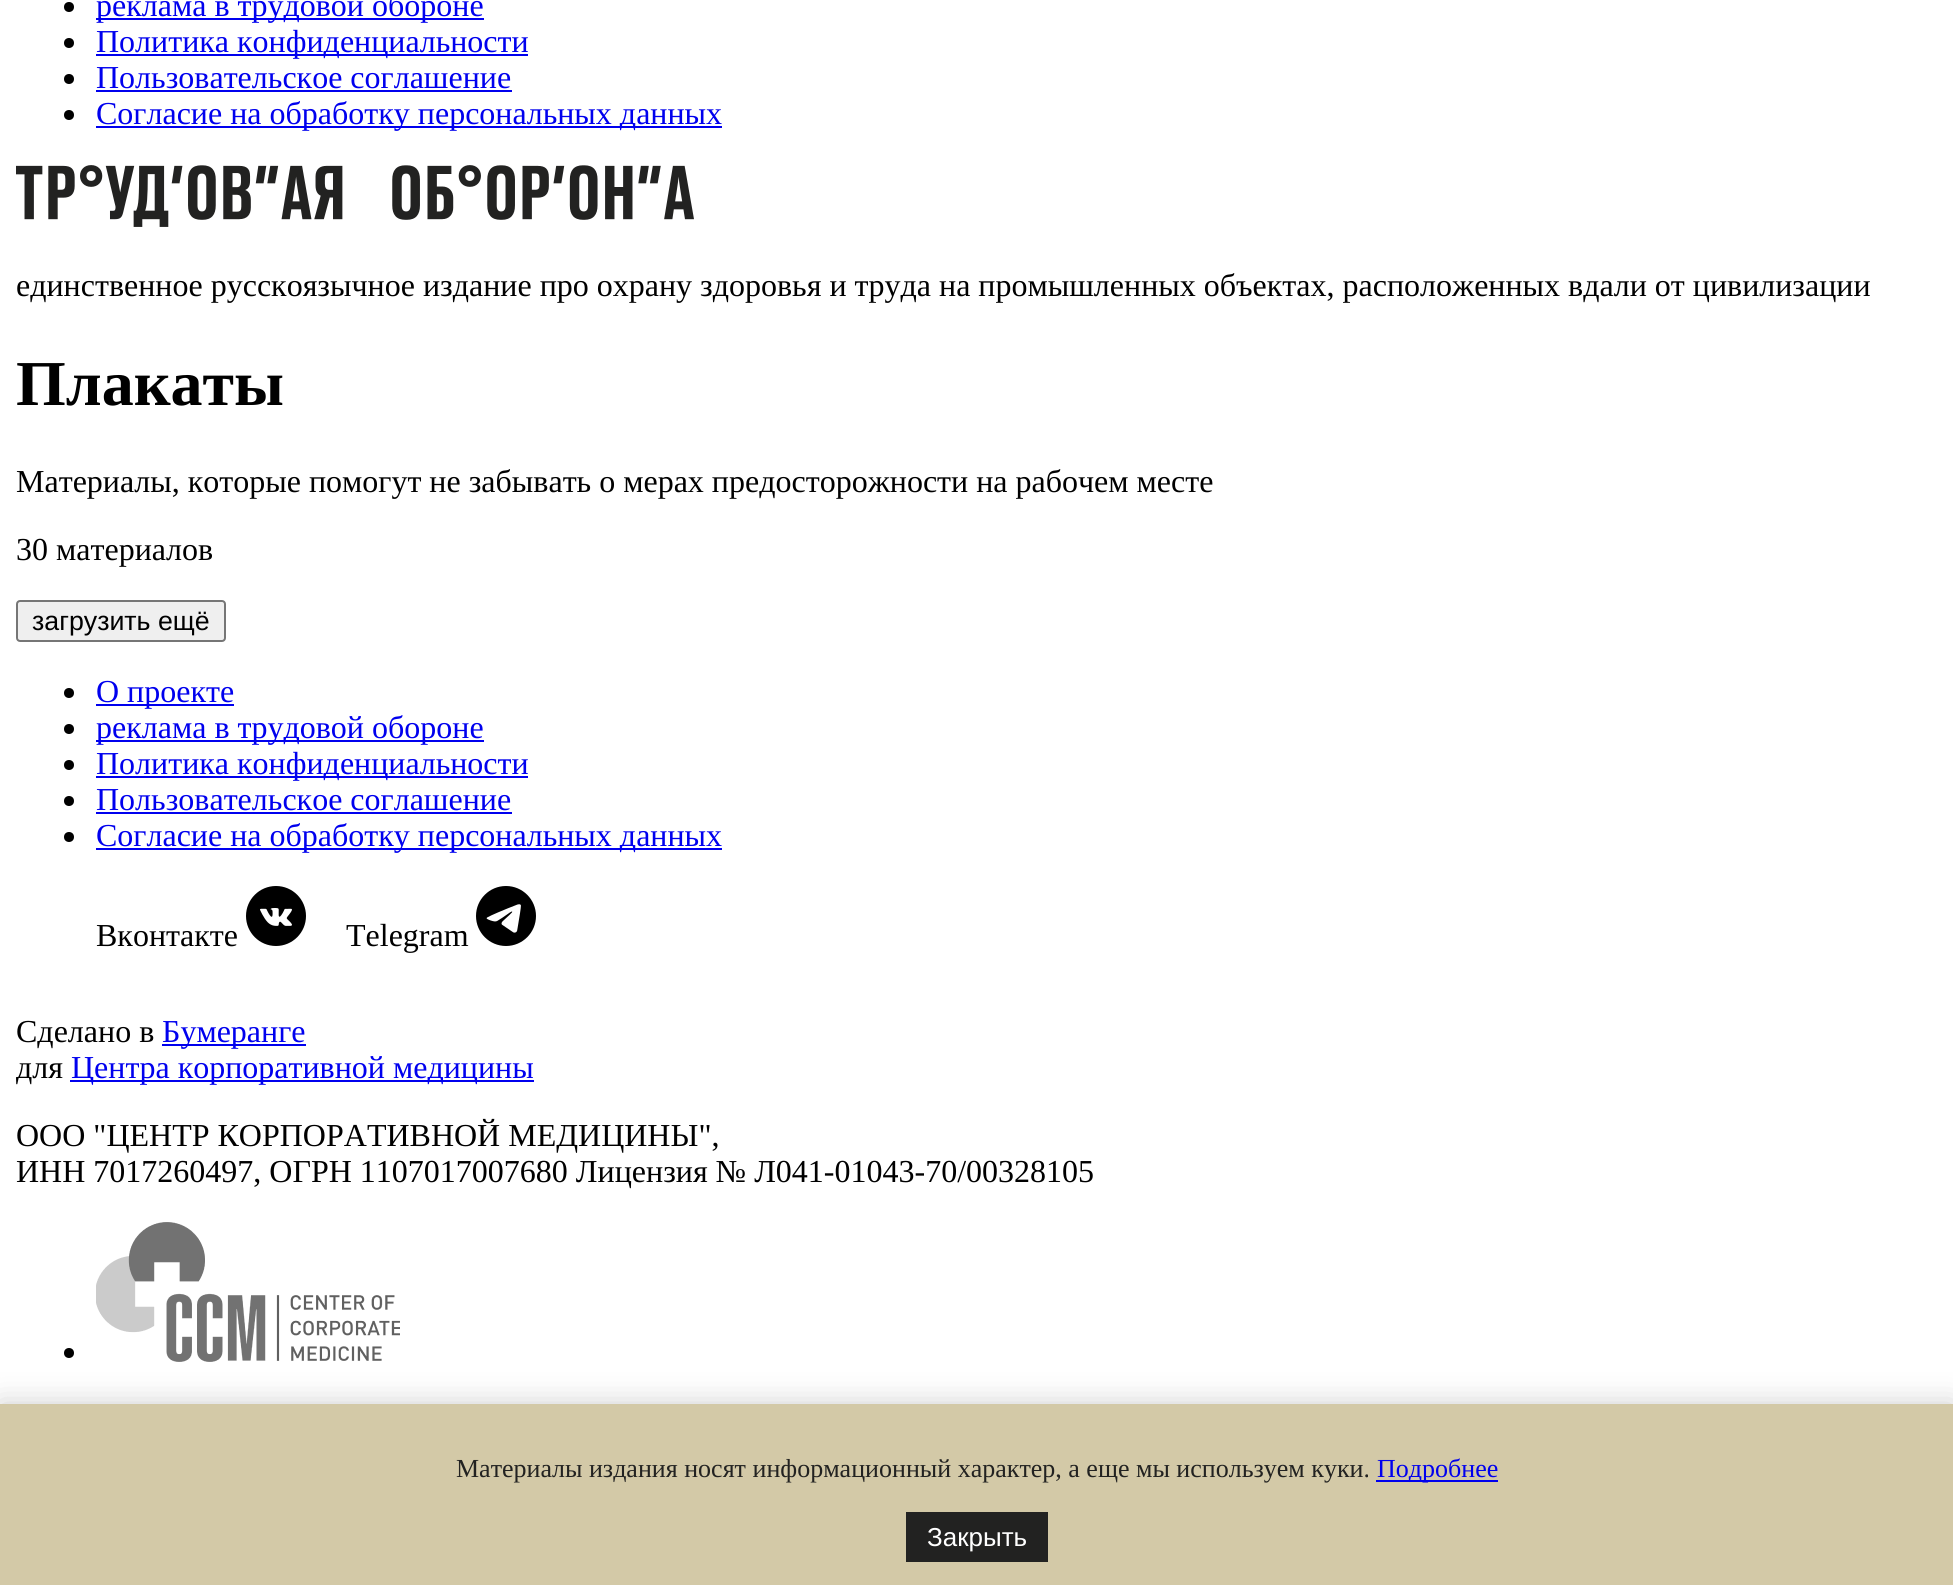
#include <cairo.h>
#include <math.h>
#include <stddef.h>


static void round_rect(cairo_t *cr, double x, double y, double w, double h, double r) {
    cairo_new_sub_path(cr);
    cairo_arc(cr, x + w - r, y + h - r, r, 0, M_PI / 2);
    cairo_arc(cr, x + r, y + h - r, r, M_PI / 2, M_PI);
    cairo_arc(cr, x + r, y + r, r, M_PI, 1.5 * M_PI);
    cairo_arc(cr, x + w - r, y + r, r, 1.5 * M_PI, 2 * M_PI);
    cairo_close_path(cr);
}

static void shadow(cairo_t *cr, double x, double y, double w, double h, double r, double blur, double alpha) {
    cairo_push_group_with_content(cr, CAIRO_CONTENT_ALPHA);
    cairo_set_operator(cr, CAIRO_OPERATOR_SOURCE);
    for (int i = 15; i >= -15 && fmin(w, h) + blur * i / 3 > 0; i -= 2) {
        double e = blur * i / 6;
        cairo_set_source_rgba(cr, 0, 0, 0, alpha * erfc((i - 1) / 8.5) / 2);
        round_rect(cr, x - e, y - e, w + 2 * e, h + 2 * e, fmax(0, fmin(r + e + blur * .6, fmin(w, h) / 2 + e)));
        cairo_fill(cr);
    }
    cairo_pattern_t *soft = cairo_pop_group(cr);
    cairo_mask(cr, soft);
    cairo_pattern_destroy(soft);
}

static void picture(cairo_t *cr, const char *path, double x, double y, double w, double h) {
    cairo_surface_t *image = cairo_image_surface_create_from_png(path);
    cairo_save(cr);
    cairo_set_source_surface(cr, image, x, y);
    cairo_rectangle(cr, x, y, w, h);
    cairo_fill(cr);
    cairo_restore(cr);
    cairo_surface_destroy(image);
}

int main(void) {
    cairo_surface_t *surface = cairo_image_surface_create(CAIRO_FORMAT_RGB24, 1953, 1585);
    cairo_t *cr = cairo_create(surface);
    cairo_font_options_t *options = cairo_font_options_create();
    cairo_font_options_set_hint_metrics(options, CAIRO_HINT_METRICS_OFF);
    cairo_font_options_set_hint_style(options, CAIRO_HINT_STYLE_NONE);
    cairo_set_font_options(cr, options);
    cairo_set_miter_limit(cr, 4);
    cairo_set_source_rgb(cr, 1, 1, 1);
    cairo_paint(cr);
    cairo_set_source_rgb(cr, 0, 0, 0);
    cairo_arc(cr, 69, 7, 5, 0, 2 * M_PI);
    cairo_fill(cr);
    cairo_set_source_rgb(cr, 0, 0, 0.933);
    cairo_rectangle(cr, 96, 18, 388, 2);
    cairo_fill(cr);
    cairo_select_font_face(cr, "Liberation Serif", CAIRO_FONT_SLANT_NORMAL, CAIRO_FONT_WEIGHT_NORMAL);
    cairo_set_font_size(cr, 32);
    cairo_move_to(cr, 96, 16);
    cairo_show_text(cr, "реклама в трудовой обороне");
    cairo_set_source_rgb(cr, 0, 0, 0);
    cairo_new_path(cr);
    cairo_arc(cr, 69, 43, 5, 0, 2 * M_PI);
    cairo_fill(cr);
    cairo_set_source_rgb(cr, 0, 0, 0.933);
    cairo_rectangle(cr, 96, 54, 432, 2);
    cairo_fill(cr);
    cairo_move_to(cr, 96, 52);
    cairo_show_text(cr, "Политика конфиденциальности");
    cairo_set_source_rgb(cr, 0, 0, 0);
    cairo_new_path(cr);
    cairo_arc(cr, 69, 79, 5, 0, 2 * M_PI);
    cairo_fill(cr);
    cairo_set_source_rgb(cr, 0, 0, 0.933);
    cairo_move_to(cr, 96, 88);
    cairo_show_text(cr, "Пользовательское соглашение");
    cairo_rectangle(cr, 96, 90, 416, 2);
    cairo_fill(cr);
    cairo_set_source_rgb(cr, 0, 0, 0);
    cairo_arc(cr, 69, 115, 5, 0, 2 * M_PI);
    cairo_fill(cr);
    cairo_set_source_rgb(cr, 0, 0, 0.933);
    cairo_rectangle(cr, 96, 126, 626, 2);
    cairo_fill(cr);
    cairo_move_to(cr, 96, 124);
    cairo_show_text(cr, "Согласие на обработку персональных данных");
    picture(cr, "img1.png", 16, 165, 678, 62);
    cairo_set_source_rgb(cr, 0, 0, 0);
    cairo_move_to(cr, 16, 296);
    cairo_show_text(cr, "единственное русскоязычное издание про охрану здоровья и труда на промышленных объектах, расположенных вдали от цивилизации");
    cairo_select_font_face(cr, "Liberation Serif", CAIRO_FONT_SLANT_NORMAL, CAIRO_FONT_WEIGHT_BOLD);
    cairo_set_font_size(cr, 64);
    cairo_move_to(cr, 16, 405);
    cairo_show_text(cr, "Плакаты");
    cairo_select_font_face(cr, "Liberation Serif", CAIRO_FONT_SLANT_NORMAL, CAIRO_FONT_WEIGHT_NORMAL);
    cairo_set_font_size(cr, 32);
    cairo_move_to(cr, 16, 492);
    cairo_show_text(cr, "Материалы, которые помогут не забывать о мерах предосторожности на рабочем месте");
    cairo_move_to(cr, 16, 560);
    cairo_show_text(cr, "30 материалов");
    cairo_set_source_rgb(cr, 0.937, 0.937, 0.937);
    round_rect(cr, 17, 601, 208, 40, 3);
    cairo_fill_preserve(cr);
    cairo_set_source_rgb(cr, 0.463, 0.463, 0.463);
    cairo_stroke(cr);
    cairo_select_font_face(cr, "Liberation Sans", CAIRO_FONT_SLANT_NORMAL, CAIRO_FONT_WEIGHT_NORMAL);
    cairo_set_font_size(cr, 26.75);
    cairo_set_source_rgb(cr, 0, 0, 0);
    cairo_move_to(cr, 32, 630);
    cairo_show_text(cr, "загрузить ещё");
    cairo_new_path(cr);
    cairo_arc(cr, 69, 693, 5, 0, 2 * M_PI);
    cairo_fill(cr);
    cairo_set_source_rgb(cr, 0, 0, 0.933);
    cairo_rectangle(cr, 96, 704, 138, 2);
    cairo_fill(cr);
    cairo_select_font_face(cr, "Liberation Serif", CAIRO_FONT_SLANT_NORMAL, CAIRO_FONT_WEIGHT_NORMAL);
    cairo_set_font_size(cr, 32);
    cairo_move_to(cr, 96, 702);
    cairo_show_text(cr, "О проекте");
    cairo_set_source_rgb(cr, 0, 0, 0);
    cairo_new_path(cr);
    cairo_arc(cr, 69, 729, 5, 0, 2 * M_PI);
    cairo_fill(cr);
    cairo_set_source_rgb(cr, 0, 0, 0.933);
    cairo_rectangle(cr, 96, 740, 388, 2);
    cairo_fill(cr);
    cairo_move_to(cr, 96, 738);
    cairo_show_text(cr, "реклама в трудовой обороне");
    cairo_set_source_rgb(cr, 0, 0, 0);
    cairo_new_path(cr);
    cairo_arc(cr, 69, 765, 5, 0, 2 * M_PI);
    cairo_fill(cr);
    cairo_set_source_rgb(cr, 0, 0, 0.933);
    cairo_rectangle(cr, 96, 776, 432, 2);
    cairo_fill(cr);
    cairo_move_to(cr, 96, 774);
    cairo_show_text(cr, "Политика конфиденциальности");
    cairo_set_source_rgb(cr, 0, 0, 0);
    cairo_new_path(cr);
    cairo_arc(cr, 69, 801, 5, 0, 2 * M_PI);
    cairo_fill(cr);
    cairo_set_source_rgb(cr, 0, 0, 0.933);
    cairo_move_to(cr, 96, 810);
    cairo_show_text(cr, "Пользовательское соглашение");
    cairo_rectangle(cr, 96, 812, 416, 2);
    cairo_fill(cr);
    cairo_set_source_rgb(cr, 0, 0, 0);
    cairo_arc(cr, 69, 837, 5, 0, 2 * M_PI);
    cairo_fill(cr);
    cairo_set_source_rgb(cr, 0, 0, 0.933);
    cairo_rectangle(cr, 96, 848, 626, 2);
    cairo_fill(cr);
    cairo_move_to(cr, 96, 846);
    cairo_show_text(cr, "Согласие на обработку персональных данных");
    cairo_set_source_rgb(cr, 0, 0, 0);
    cairo_move_to(cr, 96, 946);
    cairo_show_text(cr, "Вконтакте");
    picture(cr, "img2.png", 246, 886, 60, 60);
    cairo_move_to(cr, 346, 946);
    cairo_show_text(cr, "Telegram");
    picture(cr, "img3.png", 476, 886, 60, 60);
    cairo_move_to(cr, 16, 1042);
    cairo_show_text(cr, "Сделано в");
    cairo_set_source_rgb(cr, 0, 0, 0.933);
    cairo_rectangle(cr, 162, 1044, 144, 2);
    cairo_fill(cr);
    cairo_move_to(cr, 162, 1042);
    cairo_show_text(cr, "Бумеранге");
    cairo_set_source_rgb(cr, 0, 0, 0);
    cairo_move_to(cr, 16, 1078);
    cairo_show_text(cr, "для");
    cairo_set_source_rgb(cr, 0, 0, 0.933);
    cairo_rectangle(cr, 70, 1080, 464, 2);
    cairo_fill(cr);
    cairo_move_to(cr, 71, 1078);
    cairo_show_text(cr, "Центра корпоративной медицины");
    cairo_set_source_rgb(cr, 0, 0, 0);
    cairo_move_to(cr, 16, 1146);
    cairo_show_text(cr, "ООО \"ЦЕНТР КОРПОРАТИВНОЙ МЕДИЦИНЫ\",");
    cairo_move_to(cr, 16, 1182);
    cairo_show_text(cr, "ИНН 7017260497, ОГРН 1107017007680 Лицензия № Л041-01043-70/00328105");
    cairo_new_path(cr);
    cairo_arc(cr, 69, 1353, 5, 0, 2 * M_PI);
    cairo_fill(cr);
    picture(cr, "img4.png", 96, 1222, 304, 140);
    cairo_set_source_rgb(cr, 0, 0, 0);
    shadow(cr, 0, 1404, 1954, 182, 0, 15, 0.2);
    cairo_set_source_rgb(cr, 0.827, 0.788, 0.655);
    cairo_rectangle(cr, 0, 1404, 1953, 181);
    cairo_fill(cr);
    cairo_set_font_size(cr, 26);
    cairo_set_source_rgb(cr, 0.133, 0.133, 0.129);
    cairo_move_to(cr, 456, 1477);
    cairo_show_text(cr, "Материалы издания носят информационный характер, а еще мы используем куки.");
    cairo_set_source_rgb(cr, 0, 0, 0.933);
    cairo_rectangle(cr, 1376, 1480, 122, 2);
    cairo_fill(cr);
    cairo_move_to(cr, 1377, 1477);
    cairo_show_text(cr, "Подробнее");
    cairo_set_source_rgb(cr, 0.133, 0.133, 0.129);
    cairo_rectangle(cr, 906, 1512, 142, 50);
    cairo_fill(cr);
    cairo_select_font_face(cr, "Liberation Sans", CAIRO_FONT_SLANT_NORMAL, CAIRO_FONT_WEIGHT_NORMAL);
    cairo_set_source_rgb(cr, 1, 1, 1);
    cairo_move_to(cr, 927, 1546);
    cairo_show_text(cr, "Закрыть");
    cairo_surface_write_to_png(surface, "page.png");
    cairo_font_options_destroy(options);
    cairo_destroy(cr);
    cairo_surface_destroy(surface);
    return 0;
}
